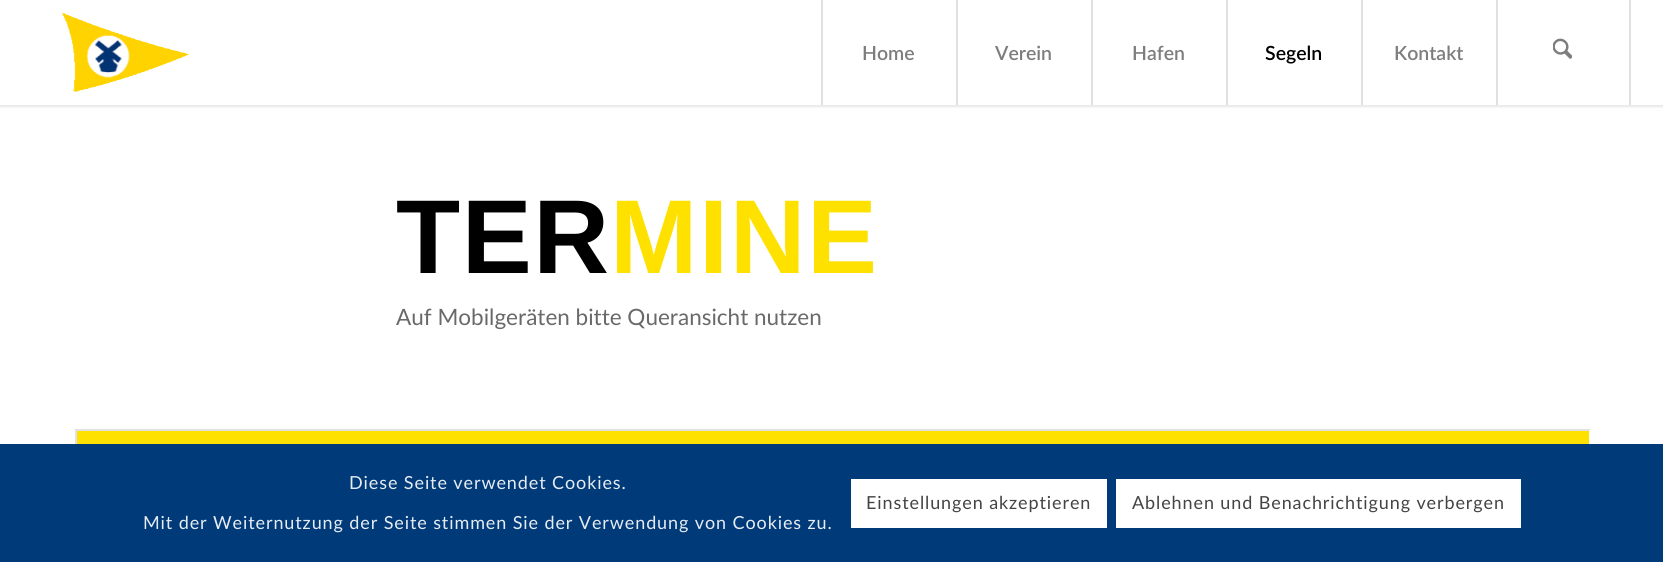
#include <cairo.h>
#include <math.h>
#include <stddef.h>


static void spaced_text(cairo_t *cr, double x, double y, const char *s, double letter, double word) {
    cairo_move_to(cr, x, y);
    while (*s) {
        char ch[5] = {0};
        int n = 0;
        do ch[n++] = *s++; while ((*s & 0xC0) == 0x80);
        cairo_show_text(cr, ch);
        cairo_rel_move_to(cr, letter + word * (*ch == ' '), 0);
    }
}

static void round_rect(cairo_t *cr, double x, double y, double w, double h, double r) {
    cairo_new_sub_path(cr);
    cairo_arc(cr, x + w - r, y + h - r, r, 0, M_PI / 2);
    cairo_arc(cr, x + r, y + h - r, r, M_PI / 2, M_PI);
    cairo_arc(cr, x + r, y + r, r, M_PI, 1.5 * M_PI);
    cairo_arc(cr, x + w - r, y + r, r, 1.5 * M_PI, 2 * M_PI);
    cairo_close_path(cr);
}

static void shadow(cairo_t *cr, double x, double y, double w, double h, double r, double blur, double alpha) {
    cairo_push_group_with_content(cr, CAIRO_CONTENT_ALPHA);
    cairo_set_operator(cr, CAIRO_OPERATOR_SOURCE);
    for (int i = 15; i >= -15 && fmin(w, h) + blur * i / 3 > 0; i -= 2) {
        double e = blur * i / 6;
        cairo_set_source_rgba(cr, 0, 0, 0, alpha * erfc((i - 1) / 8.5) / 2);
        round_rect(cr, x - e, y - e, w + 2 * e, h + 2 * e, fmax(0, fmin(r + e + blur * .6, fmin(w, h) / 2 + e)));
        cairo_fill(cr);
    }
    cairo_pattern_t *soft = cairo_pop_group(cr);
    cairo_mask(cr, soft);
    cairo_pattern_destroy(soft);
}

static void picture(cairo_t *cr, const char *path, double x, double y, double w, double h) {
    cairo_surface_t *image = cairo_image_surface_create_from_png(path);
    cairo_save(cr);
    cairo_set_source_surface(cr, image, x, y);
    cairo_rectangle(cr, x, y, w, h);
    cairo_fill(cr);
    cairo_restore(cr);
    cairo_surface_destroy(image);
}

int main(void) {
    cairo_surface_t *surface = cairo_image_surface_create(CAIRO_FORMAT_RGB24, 1663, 562);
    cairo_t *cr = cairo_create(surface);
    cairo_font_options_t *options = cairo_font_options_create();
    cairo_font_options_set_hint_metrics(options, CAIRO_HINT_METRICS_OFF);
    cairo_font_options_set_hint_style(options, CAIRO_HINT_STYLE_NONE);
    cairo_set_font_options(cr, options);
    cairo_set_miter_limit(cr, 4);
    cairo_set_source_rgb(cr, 1, 1, 1);
    cairo_paint(cr);
    cairo_save(cr);
    cairo_rectangle(cr, 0, 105, 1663, 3);
    cairo_clip(cr);
    cairo_set_source_rgb(cr, 0, 0, 0);
    shadow(cr, -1, -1, 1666, 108, 0, 1.5, 0.1);
    cairo_restore(cr);
    picture(cr, "img1.png", 62, 13, 127, 79);
    cairo_set_source_rgb(cr, 0.882, 0.882, 0.882);
    cairo_rectangle(cr, 821, 0, 2, 105);
    cairo_fill(cr);
    cairo_select_font_face(cr, "Lato SemiBold", CAIRO_FONT_SLANT_NORMAL, CAIRO_FONT_WEIGHT_NORMAL);
    cairo_set_font_size(cr, 19.5);
    cairo_set_source_rgb(cr, 0.49, 0.49, 0.49);
    cairo_move_to(cr, 862, 60);
    cairo_show_text(cr, "Home");
    cairo_set_source_rgb(cr, 0.882, 0.882, 0.882);
    cairo_rectangle(cr, 956, 0, 2, 105);
    cairo_fill(cr);
    cairo_set_source_rgb(cr, 0.49, 0.49, 0.49);
    cairo_move_to(cr, 995, 60);
    cairo_show_text(cr, "Verein");
    cairo_set_source_rgb(cr, 0.882, 0.882, 0.882);
    cairo_rectangle(cr, 1091, 0, 2, 105);
    cairo_fill(cr);
    cairo_set_source_rgb(cr, 0.49, 0.49, 0.49);
    cairo_move_to(cr, 1132, 60);
    cairo_show_text(cr, "Hafen");
    cairo_set_source_rgb(cr, 0.882, 0.882, 0.882);
    cairo_rectangle(cr, 1226, 0, 2, 105);
    cairo_fill(cr);
    cairo_set_source_rgb(cr, 0, 0, 0);
    cairo_move_to(cr, 1265, 60);
    cairo_show_text(cr, "Segeln");
    cairo_set_source_rgb(cr, 0.882, 0.882, 0.882);
    cairo_rectangle(cr, 1361, 0, 2, 105);
    cairo_fill(cr);
    cairo_set_source_rgb(cr, 0.49, 0.49, 0.49);
    cairo_move_to(cr, 1394, 60);
    cairo_show_text(cr, "Kontakt");
    cairo_set_source_rgb(cr, 0.882, 0.882, 0.882);
    cairo_rectangle(cr, 1629, 0, 2, 105);
    cairo_fill(cr);
    cairo_rectangle(cr, 1496, 0, 2, 105);
    cairo_fill(cr);
    picture(cr, "img2.png", 1553, 38, 19, 21);
    cairo_select_font_face(cr, "Liberation Sans", CAIRO_FONT_SLANT_NORMAL, CAIRO_FONT_WEIGHT_BOLD);
    cairo_set_font_size(cr, 105);
    cairo_set_source_rgb(cr, 0, 0, 0);
    spaced_text(cr, 396, 273, "TER", 1.5, 0);
    cairo_set_source_rgb(cr, 1, 0.882, 0);
    spaced_text(cr, 610, 273, "MINE", 1.5, 0);
    cairo_select_font_face(cr, "Lato", CAIRO_FONT_SLANT_NORMAL, CAIRO_FONT_WEIGHT_NORMAL);
    cairo_set_font_size(cr, 22.5);
    cairo_set_source_rgb(cr, 0.412, 0.412, 0.412);
    cairo_move_to(cr, 396, 325);
    cairo_show_text(cr, "Auf Mobilgeräten bitte Queransicht nutzen");
    cairo_set_source_rgb(cr, 1, 0.882, 0);
    cairo_rectangle(cr, 77, 431, 1512, 13);
    cairo_fill(cr);
    cairo_set_source_rgb(cr, 0.882, 0.882, 0.882);
    cairo_rectangle(cr, 75, 429, 1515, 2);
    cairo_fill(cr);
    cairo_rectangle(cr, 75, 429, 2, 15);
    cairo_fill(cr);
    cairo_set_source_rgb(cr, 0, 0.227, 0.475);
    cairo_rectangle(cr, 0, 444, 1663, 118);
    cairo_fill(cr);
    cairo_set_font_size(cr, 18);
    cairo_set_source_rgb(cr, 0.902, 0.922, 0.949);
    spaced_text(cr, 349, 489, "Diese Seite verwendet Cookies.", 0.9, 0);
    spaced_text(cr, 143, 529, "Mit der Weiternutzung der Seite stimmen Sie der Verwendung von Cookies zu.", 0.9, 0);
    cairo_set_source_rgb(cr, 1, 1, 1);
    cairo_rectangle(cr, 851, 479, 256, 49);
    cairo_fill(cr);
    cairo_set_source_rgb(cr, 0.267, 0.267, 0.267);
    spaced_text(cr, 866, 509, "Einstellungen akzeptieren", 0.9, 0);
    cairo_set_source_rgb(cr, 1, 1, 1);
    cairo_rectangle(cr, 1116, 479, 405, 49);
    cairo_fill(cr);
    cairo_set_source_rgb(cr, 0.267, 0.267, 0.267);
    spaced_text(cr, 1132, 509, "Ablehnen und Benachrichtigung verbergen", 0.9, 0);
    cairo_surface_write_to_png(surface, "page.png");
    cairo_font_options_destroy(options);
    cairo_destroy(cr);
    cairo_surface_destroy(surface);
    return 0;
}
